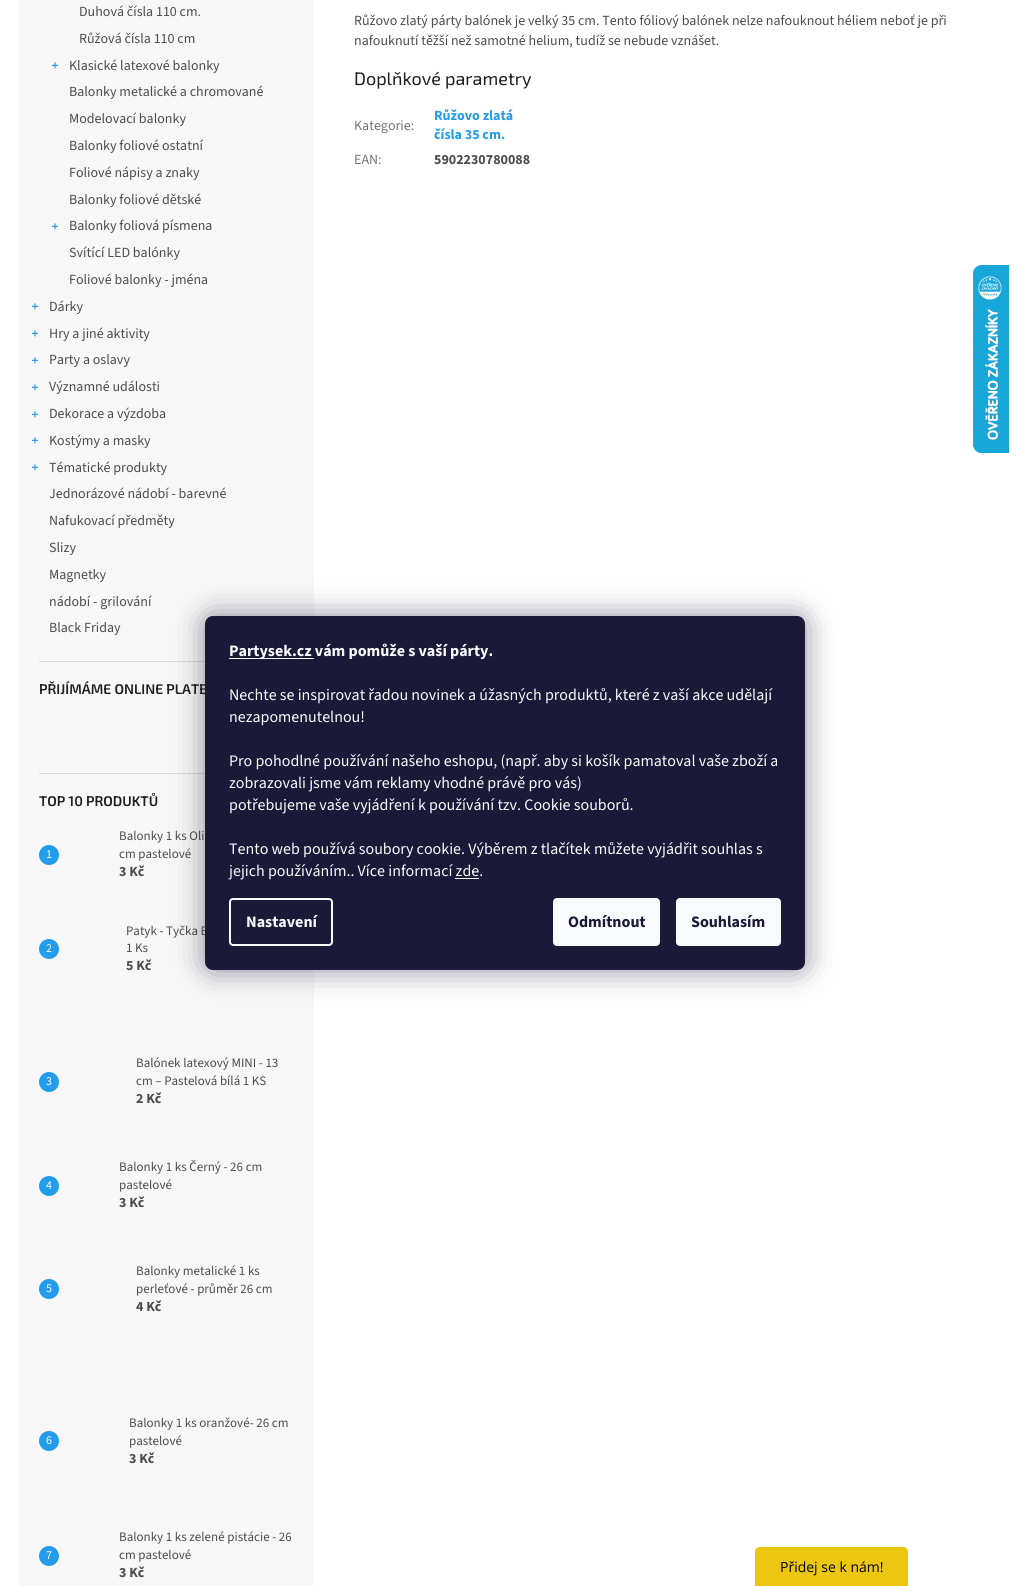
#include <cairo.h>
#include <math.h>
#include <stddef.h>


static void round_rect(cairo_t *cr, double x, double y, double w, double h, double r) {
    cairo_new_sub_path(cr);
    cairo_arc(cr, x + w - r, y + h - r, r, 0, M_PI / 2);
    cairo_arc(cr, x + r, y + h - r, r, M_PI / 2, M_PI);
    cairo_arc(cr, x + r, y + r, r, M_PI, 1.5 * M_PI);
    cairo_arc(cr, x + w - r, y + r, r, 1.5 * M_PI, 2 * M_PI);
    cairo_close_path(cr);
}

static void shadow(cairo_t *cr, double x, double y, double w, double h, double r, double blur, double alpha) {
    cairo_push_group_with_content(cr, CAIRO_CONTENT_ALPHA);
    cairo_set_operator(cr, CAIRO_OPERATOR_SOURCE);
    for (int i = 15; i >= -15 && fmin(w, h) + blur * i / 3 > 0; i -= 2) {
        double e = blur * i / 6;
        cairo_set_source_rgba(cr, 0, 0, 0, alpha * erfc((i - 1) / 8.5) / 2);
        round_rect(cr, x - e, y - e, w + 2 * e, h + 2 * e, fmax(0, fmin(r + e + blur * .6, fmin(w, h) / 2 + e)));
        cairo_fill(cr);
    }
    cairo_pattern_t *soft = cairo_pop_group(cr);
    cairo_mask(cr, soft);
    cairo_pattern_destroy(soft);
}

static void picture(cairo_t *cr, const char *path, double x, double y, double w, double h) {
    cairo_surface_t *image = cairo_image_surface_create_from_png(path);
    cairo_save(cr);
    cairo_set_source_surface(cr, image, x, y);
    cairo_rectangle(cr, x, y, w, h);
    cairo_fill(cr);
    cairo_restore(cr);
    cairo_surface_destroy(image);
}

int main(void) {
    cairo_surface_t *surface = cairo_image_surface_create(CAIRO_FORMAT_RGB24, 1024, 1586);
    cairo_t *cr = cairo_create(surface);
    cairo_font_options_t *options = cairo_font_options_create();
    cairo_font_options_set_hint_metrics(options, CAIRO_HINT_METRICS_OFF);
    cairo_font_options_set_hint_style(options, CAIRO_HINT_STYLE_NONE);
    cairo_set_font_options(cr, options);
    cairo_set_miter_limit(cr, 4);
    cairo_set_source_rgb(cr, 1, 1, 1);
    cairo_paint(cr);
    cairo_set_source_rgb(cr, 0.965, 0.965, 0.965);
    cairo_rectangle(cr, 19, 0, 295, 1586);
    cairo_fill(cr);
    cairo_set_source_rgb(cr, 0.855, 0.855, 0.855);
    cairo_rectangle(cr, 39, 661, 166, 1);
    cairo_fill(cr);
    cairo_select_font_face(cr, "Source Sans 3", CAIRO_FONT_SLANT_NORMAL, CAIRO_FONT_WEIGHT_NORMAL);
    cairo_set_font_size(cr, 14);
    cairo_set_source_rgb(cr, 0.302, 0.302, 0.302);
    cairo_move_to(cr, 79, 16);
    cairo_show_text(cr, "Duhová čísla 110 cm.");
    cairo_move_to(cr, 79, 43);
    cairo_show_text(cr, "Růžová čísla 110 cm");
    picture(cr, "img1.png", 52, 62, 6, 7);
    cairo_move_to(cr, 69, 70);
    cairo_show_text(cr, "Klasické latexové balonky");
    cairo_move_to(cr, 69, 96);
    cairo_show_text(cr, "Balonky metalické a chromované");
    cairo_move_to(cr, 69, 123);
    cairo_show_text(cr, "Modelovací balonky");
    cairo_move_to(cr, 69, 150);
    cairo_show_text(cr, "Balonky foliové ostatní");
    cairo_move_to(cr, 69, 177);
    cairo_show_text(cr, "Foliové nápisy a znaky");
    cairo_move_to(cr, 69, 204);
    cairo_show_text(cr, "Balonky foliové dětské");
    picture(cr, "img1.png", 52, 223, 6, 7);
    cairo_move_to(cr, 69, 230);
    cairo_show_text(cr, "Balonky foliová písmena");
    cairo_move_to(cr, 69, 257);
    cairo_show_text(cr, "Svítící LED balónky");
    cairo_move_to(cr, 69, 284);
    cairo_show_text(cr, "Foliové balonky - jména");
    picture(cr, "img1.png", 32, 303, 6, 7);
    cairo_move_to(cr, 49, 311);
    cairo_show_text(cr, "Dárky");
    picture(cr, "img1.png", 32, 330, 6, 7);
    cairo_move_to(cr, 49, 338);
    cairo_show_text(cr, "Hry a jiné aktivity");
    picture(cr, "img1.png", 32, 357, 6, 7);
    cairo_move_to(cr, 49, 364);
    cairo_show_text(cr, "Party a oslavy");
    picture(cr, "img1.png", 32, 384, 6, 7);
    cairo_move_to(cr, 49, 391);
    cairo_show_text(cr, "Významné události");
    picture(cr, "img1.png", 32, 411, 6, 7);
    cairo_move_to(cr, 49, 418);
    cairo_show_text(cr, "Dekorace a výzdoba");
    picture(cr, "img1.png", 32, 437, 6, 7);
    cairo_move_to(cr, 49, 445);
    cairo_show_text(cr, "Kostýmy a masky");
    picture(cr, "img1.png", 32, 464, 6, 7);
    cairo_move_to(cr, 49, 472);
    cairo_show_text(cr, "Tématické produkty");
    cairo_move_to(cr, 49, 498);
    cairo_show_text(cr, "Jednorázové nádobí - barevné");
    cairo_move_to(cr, 49, 525);
    cairo_show_text(cr, "Nafukovací předměty");
    cairo_move_to(cr, 49, 552);
    cairo_show_text(cr, "Slizy");
    cairo_move_to(cr, 49, 579);
    cairo_show_text(cr, "Magnetky");
    cairo_move_to(cr, 49, 606);
    cairo_show_text(cr, "nádobí - grilování");
    cairo_move_to(cr, 49, 632);
    cairo_show_text(cr, "Black Friday");
    cairo_set_source_rgb(cr, 0.855, 0.855, 0.855);
    cairo_rectangle(cr, 39, 773, 166, 1);
    cairo_fill(cr);
    cairo_select_font_face(cr, "Exo 2 SemiBold", CAIRO_FONT_SLANT_NORMAL, CAIRO_FONT_WEIGHT_NORMAL);
    cairo_set_source_rgb(cr, 0.122, 0.122, 0.122);
    cairo_move_to(cr, 39, 694);
    cairo_show_text(cr, "PŘIJÍMÁME ONLINE PLATB");
    cairo_move_to(cr, 39, 806);
    cairo_show_text(cr, "TOP 10 PRODUKTŮ");
    cairo_set_source_rgb(cr, 0.137, 0.612, 0.922);
    cairo_new_path(cr);
    cairo_arc(cr, 49, 855, 10, 0, 2 * M_PI);
    cairo_fill(cr);
    cairo_select_font_face(cr, "Source Sans 3", CAIRO_FONT_SLANT_NORMAL, CAIRO_FONT_WEIGHT_NORMAL);
    cairo_set_font_size(cr, 12);
    cairo_set_source_rgb(cr, 1, 1, 1);
    cairo_move_to(cr, 46, 858);
    cairo_show_text(cr, "1");
    cairo_set_font_size(cr, 13);
    cairo_set_source_rgb(cr, 0.302, 0.302, 0.302);
    cairo_move_to(cr, 119, 840);
    cairo_show_text(cr, "Balonky 1 ks Oli");
    cairo_move_to(cr, 119, 858);
    cairo_show_text(cr, "cm pastelové");
    cairo_select_font_face(cr, "Source Sans 3", CAIRO_FONT_SLANT_NORMAL, CAIRO_FONT_WEIGHT_BOLD);
    cairo_set_font_size(cr, 14);
    cairo_move_to(cr, 119, 876);
    cairo_show_text(cr, "3 Kč");
    cairo_set_source_rgb(cr, 0.137, 0.612, 0.922);
    cairo_new_path(cr);
    cairo_arc(cr, 49, 949, 10, 0, 2 * M_PI);
    cairo_fill(cr);
    cairo_select_font_face(cr, "Source Sans 3", CAIRO_FONT_SLANT_NORMAL, CAIRO_FONT_WEIGHT_NORMAL);
    cairo_set_font_size(cr, 12);
    cairo_set_source_rgb(cr, 1, 1, 1);
    cairo_move_to(cr, 46, 952);
    cairo_show_text(cr, "2");
    cairo_set_font_size(cr, 13);
    cairo_set_source_rgb(cr, 0.302, 0.302, 0.302);
    cairo_move_to(cr, 126, 935);
    cairo_show_text(cr, "Patyk - Tyčka B");
    cairo_move_to(cr, 126, 952);
    cairo_show_text(cr, "1 Ks");
    cairo_select_font_face(cr, "Source Sans 3", CAIRO_FONT_SLANT_NORMAL, CAIRO_FONT_WEIGHT_BOLD);
    cairo_set_font_size(cr, 14);
    cairo_move_to(cr, 126, 970);
    cairo_show_text(cr, "5 Kč");
    cairo_set_source_rgb(cr, 0.137, 0.612, 0.922);
    cairo_new_path(cr);
    cairo_arc(cr, 49, 1082, 10, 0, 2 * M_PI);
    cairo_fill(cr);
    cairo_select_font_face(cr, "Source Sans 3", CAIRO_FONT_SLANT_NORMAL, CAIRO_FONT_WEIGHT_NORMAL);
    cairo_set_font_size(cr, 12);
    cairo_set_source_rgb(cr, 1, 1, 1);
    cairo_move_to(cr, 46, 1085);
    cairo_show_text(cr, "3");
    cairo_set_font_size(cr, 13);
    cairo_set_source_rgb(cr, 0.302, 0.302, 0.302);
    cairo_move_to(cr, 136, 1067);
    cairo_show_text(cr, "Balónek latexový MINI - 13");
    cairo_move_to(cr, 136, 1085);
    cairo_show_text(cr, "cm – Pastelová bílá 1 KS");
    cairo_select_font_face(cr, "Source Sans 3", CAIRO_FONT_SLANT_NORMAL, CAIRO_FONT_WEIGHT_BOLD);
    cairo_set_font_size(cr, 14);
    cairo_move_to(cr, 136, 1103);
    cairo_show_text(cr, "2 Kč");
    cairo_set_source_rgb(cr, 0.137, 0.612, 0.922);
    cairo_new_path(cr);
    cairo_arc(cr, 49, 1186, 10, 0, 2 * M_PI);
    cairo_fill(cr);
    cairo_select_font_face(cr, "Source Sans 3", CAIRO_FONT_SLANT_NORMAL, CAIRO_FONT_WEIGHT_NORMAL);
    cairo_set_font_size(cr, 12);
    cairo_set_source_rgb(cr, 1, 1, 1);
    cairo_move_to(cr, 46, 1189);
    cairo_show_text(cr, "4");
    cairo_set_font_size(cr, 13);
    cairo_set_source_rgb(cr, 0.302, 0.302, 0.302);
    cairo_move_to(cr, 119, 1171);
    cairo_show_text(cr, "Balonky 1 ks Černý - 26 cm");
    cairo_move_to(cr, 119, 1189);
    cairo_show_text(cr, "pastelové");
    cairo_select_font_face(cr, "Source Sans 3", CAIRO_FONT_SLANT_NORMAL, CAIRO_FONT_WEIGHT_BOLD);
    cairo_set_font_size(cr, 14);
    cairo_move_to(cr, 119, 1207);
    cairo_show_text(cr, "3 Kč");
    cairo_set_source_rgb(cr, 0.137, 0.612, 0.922);
    cairo_new_path(cr);
    cairo_arc(cr, 49, 1289, 10, 0, 2 * M_PI);
    cairo_fill(cr);
    cairo_select_font_face(cr, "Source Sans 3", CAIRO_FONT_SLANT_NORMAL, CAIRO_FONT_WEIGHT_NORMAL);
    cairo_set_font_size(cr, 12);
    cairo_set_source_rgb(cr, 1, 1, 1);
    cairo_move_to(cr, 46, 1292);
    cairo_show_text(cr, "5");
    cairo_set_font_size(cr, 13);
    cairo_set_source_rgb(cr, 0.302, 0.302, 0.302);
    cairo_move_to(cr, 136, 1275);
    cairo_show_text(cr, "Balonky metalické 1 ks");
    cairo_move_to(cr, 136, 1293);
    cairo_show_text(cr, "perleťové - průměr 26 cm");
    cairo_select_font_face(cr, "Source Sans 3", CAIRO_FONT_SLANT_NORMAL, CAIRO_FONT_WEIGHT_BOLD);
    cairo_set_font_size(cr, 14);
    cairo_move_to(cr, 136, 1311);
    cairo_show_text(cr, "4 Kč");
    cairo_set_source_rgb(cr, 0.137, 0.612, 0.922);
    cairo_new_path(cr);
    cairo_arc(cr, 49, 1441, 10, 0, 2 * M_PI);
    cairo_fill(cr);
    cairo_select_font_face(cr, "Source Sans 3", CAIRO_FONT_SLANT_NORMAL, CAIRO_FONT_WEIGHT_NORMAL);
    cairo_set_font_size(cr, 12);
    cairo_set_source_rgb(cr, 1, 1, 1);
    cairo_move_to(cr, 46, 1444);
    cairo_show_text(cr, "6");
    cairo_set_font_size(cr, 13);
    cairo_set_source_rgb(cr, 0.302, 0.302, 0.302);
    cairo_move_to(cr, 129, 1427);
    cairo_show_text(cr, "Balonky 1 ks oranžové- 26 cm");
    cairo_move_to(cr, 129, 1445);
    cairo_show_text(cr, "pastelové");
    cairo_select_font_face(cr, "Source Sans 3", CAIRO_FONT_SLANT_NORMAL, CAIRO_FONT_WEIGHT_BOLD);
    cairo_set_font_size(cr, 14);
    cairo_move_to(cr, 129, 1463);
    cairo_show_text(cr, "3 Kč");
    cairo_set_source_rgb(cr, 0.137, 0.612, 0.922);
    cairo_new_path(cr);
    cairo_arc(cr, 49, 1556, 10, 0, 2 * M_PI);
    cairo_fill(cr);
    cairo_select_font_face(cr, "Source Sans 3", CAIRO_FONT_SLANT_NORMAL, CAIRO_FONT_WEIGHT_NORMAL);
    cairo_set_font_size(cr, 12);
    cairo_set_source_rgb(cr, 1, 1, 1);
    cairo_move_to(cr, 46, 1559);
    cairo_show_text(cr, "7");
    cairo_set_font_size(cr, 13);
    cairo_set_source_rgb(cr, 0.302, 0.302, 0.302);
    cairo_move_to(cr, 119, 1541);
    cairo_show_text(cr, "Balonky 1 ks zelené pistácie - 26");
    cairo_move_to(cr, 119, 1559);
    cairo_show_text(cr, "cm pastelové");
    cairo_select_font_face(cr, "Source Sans 3", CAIRO_FONT_SLANT_NORMAL, CAIRO_FONT_WEIGHT_BOLD);
    cairo_set_font_size(cr, 14);
    cairo_move_to(cr, 119, 1577);
    cairo_show_text(cr, "3 Kč");
    cairo_select_font_face(cr, "Source Sans 3", CAIRO_FONT_SLANT_NORMAL, CAIRO_FONT_WEIGHT_NORMAL);
    cairo_move_to(cr, 354, 25);
    cairo_show_text(cr, "Růžovo zlatý párty balónek je velký 35 cm. Tento fóliový balónek nelze nafouknout héliem neboť je při");
    cairo_move_to(cr, 354, 45);
    cairo_show_text(cr, "nafouknutí těžší než samotné helium, tudíž se nebude vznášet.");
    cairo_select_font_face(cr, "Exo 2", CAIRO_FONT_SLANT_NORMAL, CAIRO_FONT_WEIGHT_NORMAL);
    cairo_set_font_size(cr, 18);
    cairo_set_source_rgb(cr, 0.122, 0.122, 0.122);
    cairo_move_to(cr, 354, 85);
    cairo_show_text(cr, "Doplňkové parametry");
    cairo_select_font_face(cr, "Source Sans 3", CAIRO_FONT_SLANT_NORMAL, CAIRO_FONT_WEIGHT_NORMAL);
    cairo_set_font_size(cr, 14);
    cairo_set_source_rgb(cr, 0.463, 0.463, 0.463);
    cairo_move_to(cr, 354, 130);
    cairo_show_text(cr, "Kategorie:");
    cairo_select_font_face(cr, "Source Sans 3", CAIRO_FONT_SLANT_NORMAL, CAIRO_FONT_WEIGHT_BOLD);
    cairo_set_source_rgb(cr, 0.137, 0.612, 0.922);
    cairo_move_to(cr, 434, 120);
    cairo_show_text(cr, "Růžovo zlatá");
    cairo_move_to(cr, 434, 139);
    cairo_show_text(cr, "čísla 35 cm.");
    cairo_select_font_face(cr, "Source Sans 3", CAIRO_FONT_SLANT_NORMAL, CAIRO_FONT_WEIGHT_NORMAL);
    cairo_set_source_rgb(cr, 0.463, 0.463, 0.463);
    cairo_move_to(cr, 354, 164);
    cairo_show_text(cr, "EAN:");
    cairo_select_font_face(cr, "Source Sans 3", CAIRO_FONT_SLANT_NORMAL, CAIRO_FONT_WEIGHT_BOLD);
    cairo_set_source_rgb(cr, 0.302, 0.302, 0.302);
    cairo_move_to(cr, 434, 164);
    cairo_show_text(cr, "5902230780088");
    picture(cr, "img2.png", 973, 265, 36, 188);
    cairo_set_source_rgb(cr, 0.106, 0.098, 0.224);
    shadow(cr, 205, 616, 600, 354, 8, 15, 0.5);
    cairo_set_source_rgb(cr, 0.102, 0.098, 0.216);
    round_rect(cr, 205, 616, 600, 354, 8);
    cairo_fill(cr);
    cairo_set_source_rgb(cr, 0.973, 0.98, 0.984);
    cairo_rectangle(cr, 229, 658, 85, 1);
    cairo_fill(cr);
    cairo_set_font_size(cr, 16);
    cairo_move_to(cr, 229, 656);
    cairo_show_text(cr, "Partysek.cz vám pomůže s vaší párty.");
    cairo_select_font_face(cr, "Source Sans 3", CAIRO_FONT_SLANT_NORMAL, CAIRO_FONT_WEIGHT_NORMAL);
    cairo_move_to(cr, 229, 700);
    cairo_show_text(cr, "Nechte se inspirovat řadou novinek a úžasných produktů, které z vaší akce udělají");
    cairo_move_to(cr, 229, 722);
    cairo_show_text(cr, "nezapomenutelnou!");
    cairo_move_to(cr, 229, 766);
    cairo_show_text(cr, "Pro pohodlné používání našeho eshopu, (např. aby si košík pamatoval vaše zboží a");
    cairo_move_to(cr, 229, 788);
    cairo_show_text(cr, "zobrazovali jsme vám reklamy vhodné právě pro vás)");
    cairo_move_to(cr, 229, 810);
    cairo_show_text(cr, "potřebujeme vaše vyjádření k používání tzv. Cookie souborů.");
    cairo_move_to(cr, 229, 854);
    cairo_show_text(cr, "Tento web používá soubory cookie. Výběrem z tlačítek můžete vyjádřit souhlas s");
    cairo_move_to(cr, 229, 876);
    cairo_show_text(cr, "jejich používáním.. Více informací zde.");
    cairo_rectangle(cr, 455, 878, 24, 1);
    cairo_fill(cr);
    round_rect(cr, 230, 899, 102, 46, 3);
    cairo_stroke(cr);
    cairo_select_font_face(cr, "Source Sans 3", CAIRO_FONT_SLANT_NORMAL, CAIRO_FONT_WEIGHT_BOLD);
    cairo_move_to(cr, 246, 927);
    cairo_show_text(cr, "Nastavení");
    round_rect(cr, 553, 898, 107, 48, 4);
    cairo_fill(cr);
    cairo_set_source_rgb(cr, 0.102, 0.098, 0.216);
    cairo_move_to(cr, 568, 927);
    cairo_show_text(cr, "Odmítnout");
    cairo_set_source_rgb(cr, 0.973, 0.98, 0.984);
    round_rect(cr, 676, 898, 105, 48, 4);
    cairo_fill(cr);
    cairo_set_source_rgb(cr, 0.102, 0.098, 0.216);
    cairo_move_to(cr, 691, 927);
    cairo_show_text(cr, "Souhlasím");
    cairo_set_source_rgb(cr, 0.922, 0.776, 0.059);
    cairo_new_path(cr);
    cairo_move_to(cr, 760, 1547);
    cairo_line_to(cr, 903, 1547);
    cairo_curve_to(cr, 906, 1547, 908, 1549, 908, 1552);
    cairo_line_to(cr, 908, 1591);
    cairo_line_to(cr, 755, 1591);
    cairo_line_to(cr, 755, 1552);
    cairo_curve_to(cr, 755, 1549, 757, 1547, 760, 1547);
    cairo_close_path(cr);
    cairo_fill(cr);
    cairo_select_font_face(cr, "Open Sans", CAIRO_FONT_SLANT_NORMAL, CAIRO_FONT_WEIGHT_NORMAL);
    cairo_set_font_size(cr, 14);
    cairo_set_source_rgb(cr, 0, 0, 0);
    cairo_move_to(cr, 780, 1572);
    cairo_show_text(cr, "Přidej se k nám!");
    cairo_surface_write_to_png(surface, "page.png");
    cairo_font_options_destroy(options);
    cairo_destroy(cr);
    cairo_surface_destroy(surface);
    return 0;
}
